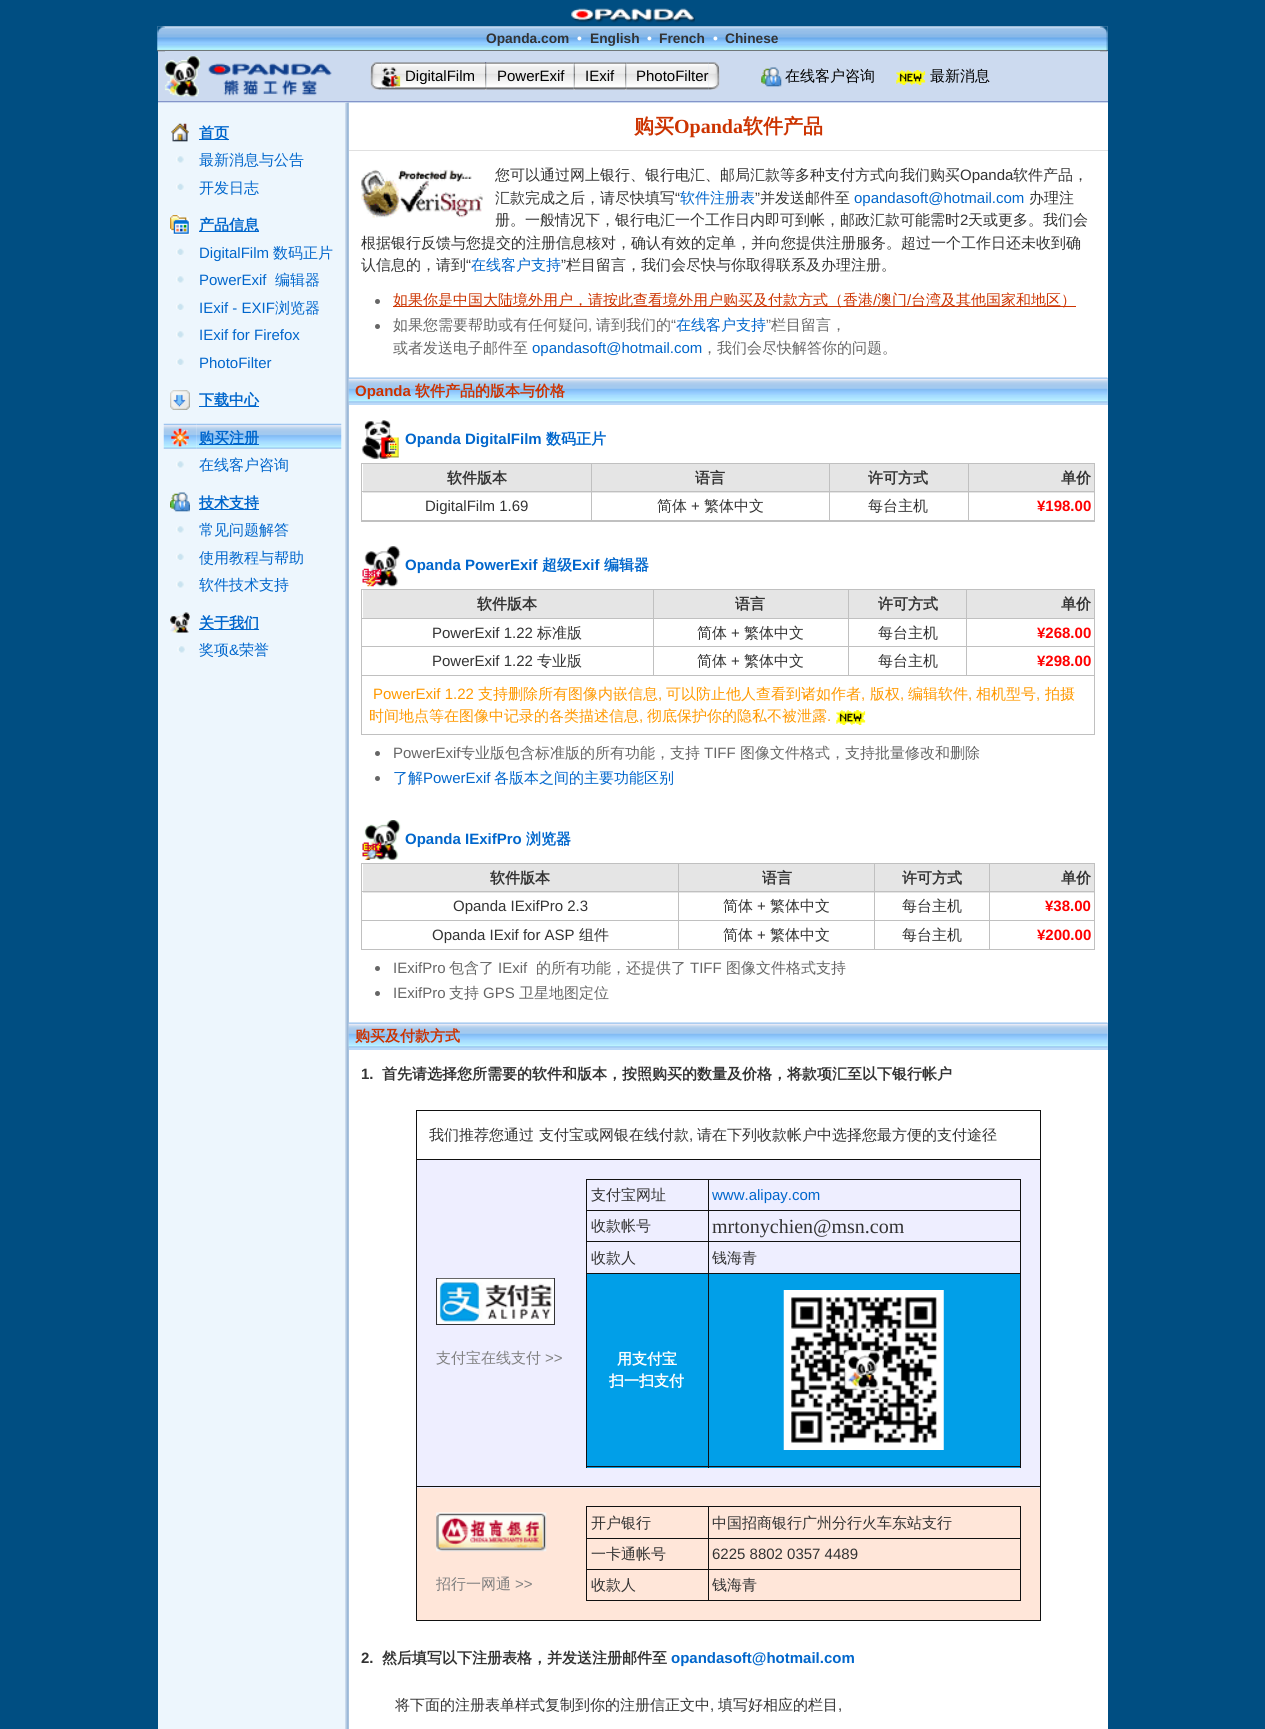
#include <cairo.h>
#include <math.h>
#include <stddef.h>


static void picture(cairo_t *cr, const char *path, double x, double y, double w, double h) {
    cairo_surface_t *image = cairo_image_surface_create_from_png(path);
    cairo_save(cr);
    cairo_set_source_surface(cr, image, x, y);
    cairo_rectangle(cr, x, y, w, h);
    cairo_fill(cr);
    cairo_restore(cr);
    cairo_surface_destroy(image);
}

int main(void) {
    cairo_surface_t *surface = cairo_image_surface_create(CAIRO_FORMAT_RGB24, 1265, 1729);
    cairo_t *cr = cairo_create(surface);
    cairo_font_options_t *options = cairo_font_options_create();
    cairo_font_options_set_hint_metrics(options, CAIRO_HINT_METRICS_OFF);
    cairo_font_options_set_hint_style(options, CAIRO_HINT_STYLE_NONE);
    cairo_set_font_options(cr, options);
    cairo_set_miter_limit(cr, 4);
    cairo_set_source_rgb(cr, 0, 0.306, 0.51);
    cairo_paint(cr);
    picture(cr, "img2.png", 157, 26, 951, 26);
    cairo_set_source_rgb(cr, 0.8, 0.855, 0.937);
    cairo_rectangle(cr, 158, 51, 950, 52);
    cairo_fill(cr);
    cairo_set_source_rgb(cr, 0.518, 0.584, 0.792);
    cairo_rectangle(cr, 158, 101, 950, 1);
    cairo_fill(cr);
    picture(cr, "img1.png", 571, 8, 124, 15);
    picture(cr, "img3.png", 157, 26, 8, 26);
    cairo_select_font_face(cr, "Liberation Sans", CAIRO_FONT_SLANT_NORMAL, CAIRO_FONT_WEIGHT_BOLD);
    cairo_set_font_size(cr, 13.75);
    cairo_set_source_rgb(cr, 0.2, 0.2, 0.2);
    cairo_move_to(cr, 486, 43);
    cairo_show_text(cr, "Opanda.com");
    cairo_set_source_rgb(cr, 1, 1, 1);
    cairo_move_to(cr, 577, 43);
    cairo_show_text(cr, "•");
    cairo_set_source_rgb(cr, 0.2, 0.2, 0.2);
    cairo_move_to(cr, 590, 43);
    cairo_show_text(cr, "English");
    cairo_set_source_rgb(cr, 1, 1, 1);
    cairo_move_to(cr, 647, 43);
    cairo_show_text(cr, "•");
    cairo_set_source_rgb(cr, 0.2, 0.2, 0.2);
    cairo_move_to(cr, 659, 43);
    cairo_show_text(cr, "French");
    cairo_set_source_rgb(cr, 1, 1, 1);
    cairo_move_to(cr, 713, 43);
    cairo_show_text(cr, "•");
    cairo_set_source_rgb(cr, 0.2, 0.2, 0.2);
    cairo_move_to(cr, 725, 43);
    cairo_show_text(cr, "Chinese");
    picture(cr, "img4.png", 1100, 26, 8, 26);
    picture(cr, "img5.png", 164, 56, 168, 41);
    picture(cr, "img6.png", 370, 62, 12, 28);
    picture(cr, "img7.png", 381, 62, 104, 28);
    picture(cr, "img8.png", 381, 67, 20, 21);
    cairo_select_font_face(cr, "Liberation Sans", CAIRO_FONT_SLANT_NORMAL, CAIRO_FONT_WEIGHT_NORMAL);
    cairo_set_font_size(cr, 15);
    cairo_set_source_rgb(cr, 0, 0, 0);
    cairo_move_to(cr, 405, 81);
    cairo_show_text(cr, "DigitalFilm");
    picture(cr, "img9.png", 485, 62, 2, 28);
    picture(cr, "img11.png", 486, 62, 88, 28);
    picture(cr, "img10.png", 485, 62, 2, 28);
    cairo_move_to(cr, 497, 81);
    cairo_show_text(cr, "PowerExif");
    picture(cr, "img12.png", 573, 62, 2, 28);
    picture(cr, "img13.png", 575, 62, 50, 28);
    cairo_move_to(cr, 585, 81);
    cairo_show_text(cr, "IExif");
    picture(cr, "img15.png", 626, 62, 83, 28);
    picture(cr, "img14.png", 625, 62, 2, 28);
    picture(cr, "img16.png", 708, 62, 12, 28);
    cairo_move_to(cr, 636, 81);
    cairo_show_text(cr, "PhotoFilter");
    picture(cr, "img17.png", 761, 67, 21, 20);
    cairo_select_font_face(cr, "WenQuanYi Zen Hei Medium", CAIRO_FONT_SLANT_NORMAL, CAIRO_FONT_WEIGHT_NORMAL);
    cairo_move_to(cr, 785, 81);
    cairo_show_text(cr, "在线客户咨询");
    picture(cr, "img18.png", 896, 70, 30, 15);
    cairo_move_to(cr, 930, 81);
    cairo_show_text(cr, "最新消息");
    cairo_set_source_rgb(cr, 0.929, 0.961, 0.992);
    cairo_rectangle(cr, 158, 103, 191, 1626);
    cairo_fill(cr);
    picture(cr, "img19.png", 171, 123, 18, 19);
    cairo_set_source_rgb(cr, 0, 0.4, 0.8);
    cairo_rectangle(cr, 199, 139, 30, 1);
    cairo_fill(cr);
    cairo_select_font_face(cr, "WenQuanYi Zen Hei", CAIRO_FONT_SLANT_NORMAL, CAIRO_FONT_WEIGHT_BOLD);
    cairo_move_to(cr, 199, 138);
    cairo_show_text(cr, "首页");
    picture(cr, "img20.png", 176, 156, 8, 7);
    cairo_select_font_face(cr, "WenQuanYi Zen Hei Medium", CAIRO_FONT_SLANT_NORMAL, CAIRO_FONT_WEIGHT_NORMAL);
    cairo_move_to(cr, 199, 165);
    cairo_show_text(cr, "最新消息与公告");
    picture(cr, "img21.png", 176, 183, 8, 7);
    cairo_move_to(cr, 199, 193);
    cairo_show_text(cr, "开发日志");
    picture(cr, "img22.png", 170, 215, 20, 20);
    cairo_rectangle(cr, 199, 231, 60, 1);
    cairo_fill(cr);
    cairo_select_font_face(cr, "WenQuanYi Zen Hei", CAIRO_FONT_SLANT_NORMAL, CAIRO_FONT_WEIGHT_BOLD);
    cairo_move_to(cr, 199, 230);
    cairo_show_text(cr, "产品信息");
    picture(cr, "img21.png", 176, 248, 8, 7);
    cairo_select_font_face(cr, "Liberation Sans", CAIRO_FONT_SLANT_NORMAL, CAIRO_FONT_WEIGHT_NORMAL);
    cairo_move_to(cr, 199, 258);
    cairo_show_text(cr, "DigitalFilm");
    cairo_select_font_face(cr, "WenQuanYi Zen Hei Medium", CAIRO_FONT_SLANT_NORMAL, CAIRO_FONT_WEIGHT_NORMAL);
    cairo_move_to(cr, 273, 258);
    cairo_show_text(cr, "数码正片");
    picture(cr, "img20.png", 176, 276, 8, 7);
    cairo_select_font_face(cr, "Liberation Sans", CAIRO_FONT_SLANT_NORMAL, CAIRO_FONT_WEIGHT_NORMAL);
    cairo_move_to(cr, 199, 285);
    cairo_show_text(cr, "PowerExif");
    cairo_select_font_face(cr, "WenQuanYi Zen Hei Medium", CAIRO_FONT_SLANT_NORMAL, CAIRO_FONT_WEIGHT_NORMAL);
    cairo_move_to(cr, 275, 285);
    cairo_show_text(cr, "编辑器");
    picture(cr, "img21.png", 176, 303, 8, 7);
    cairo_select_font_face(cr, "Liberation Sans", CAIRO_FONT_SLANT_NORMAL, CAIRO_FONT_WEIGHT_NORMAL);
    cairo_move_to(cr, 199, 313);
    cairo_show_text(cr, "IExif - EXIF");
    cairo_select_font_face(cr, "WenQuanYi Zen Hei Medium", CAIRO_FONT_SLANT_NORMAL, CAIRO_FONT_WEIGHT_NORMAL);
    cairo_move_to(cr, 275, 313);
    cairo_show_text(cr, "浏览器");
    picture(cr, "img20.png", 176, 331, 8, 7);
    cairo_select_font_face(cr, "Liberation Sans", CAIRO_FONT_SLANT_NORMAL, CAIRO_FONT_WEIGHT_NORMAL);
    cairo_move_to(cr, 199, 340);
    cairo_show_text(cr, "IExif for Firefox");
    picture(cr, "img21.png", 176, 358, 8, 7);
    cairo_move_to(cr, 199, 368);
    cairo_show_text(cr, "PhotoFilter");
    picture(cr, "img23.png", 170, 390, 20, 20);
    cairo_rectangle(cr, 199, 406, 60, 1);
    cairo_fill(cr);
    cairo_select_font_face(cr, "WenQuanYi Zen Hei", CAIRO_FONT_SLANT_NORMAL, CAIRO_FONT_WEIGHT_BOLD);
    cairo_move_to(cr, 199, 405);
    cairo_show_text(cr, "下载中心");
    picture(cr, "img24.png", 163, 423, 34, 26);
    picture(cr, "img25.png", 171, 428, 18, 19);
    picture(cr, "img26.png", 196, 423, 146, 26);
    cairo_rectangle(cr, 199, 444, 60, 1);
    cairo_fill(cr);
    cairo_move_to(cr, 199, 443);
    cairo_show_text(cr, "购买注册");
    picture(cr, "img20.png", 176, 461, 8, 7);
    cairo_select_font_face(cr, "WenQuanYi Zen Hei Medium", CAIRO_FONT_SLANT_NORMAL, CAIRO_FONT_WEIGHT_NORMAL);
    cairo_move_to(cr, 199, 470);
    cairo_show_text(cr, "在线客户咨询");
    picture(cr, "img27.png", 170, 492, 20, 20);
    cairo_rectangle(cr, 199, 509, 60, 1);
    cairo_fill(cr);
    cairo_select_font_face(cr, "WenQuanYi Zen Hei", CAIRO_FONT_SLANT_NORMAL, CAIRO_FONT_WEIGHT_BOLD);
    cairo_move_to(cr, 199, 508);
    cairo_show_text(cr, "技术支持");
    picture(cr, "img20.png", 176, 526, 8, 7);
    cairo_select_font_face(cr, "WenQuanYi Zen Hei Medium", CAIRO_FONT_SLANT_NORMAL, CAIRO_FONT_WEIGHT_NORMAL);
    cairo_move_to(cr, 199, 535);
    cairo_show_text(cr, "常见问题解答");
    picture(cr, "img21.png", 176, 553, 8, 7);
    cairo_move_to(cr, 199, 563);
    cairo_show_text(cr, "使用教程与帮助");
    picture(cr, "img20.png", 176, 581, 8, 7);
    cairo_move_to(cr, 199, 590);
    cairo_show_text(cr, "软件技术支持");
    picture(cr, "img28.png", 170, 612, 20, 21);
    cairo_rectangle(cr, 199, 629, 60, 1);
    cairo_fill(cr);
    cairo_select_font_face(cr, "WenQuanYi Zen Hei", CAIRO_FONT_SLANT_NORMAL, CAIRO_FONT_WEIGHT_BOLD);
    cairo_move_to(cr, 199, 628);
    cairo_show_text(cr, "关于我们");
    picture(cr, "img29.png", 177, 646, 8, 7);
    cairo_select_font_face(cr, "WenQuanYi Zen Hei Medium", CAIRO_FONT_SLANT_NORMAL, CAIRO_FONT_WEIGHT_NORMAL);
    cairo_move_to(cr, 199, 655);
    cairo_show_text(cr, "奖项");
    cairo_select_font_face(cr, "Liberation Sans", CAIRO_FONT_SLANT_NORMAL, CAIRO_FONT_WEIGHT_NORMAL);
    cairo_move_to(cr, 229, 655);
    cairo_show_text(cr, "&");
    cairo_select_font_face(cr, "WenQuanYi Zen Hei Medium", CAIRO_FONT_SLANT_NORMAL, CAIRO_FONT_WEIGHT_NORMAL);
    cairo_move_to(cr, 239, 655);
    cairo_show_text(cr, "荣誉");
    picture(cr, "img30.png", 345, 102, 4, 1627);
    cairo_set_source_rgb(cr, 1, 1, 1);
    cairo_rectangle(cr, 349, 103, 759, 1626);
    cairo_fill(cr);
    cairo_set_source_rgb(cr, 0.878, 0.878, 0.878);
    cairo_rectangle(cr, 349, 150, 759, 1);
    cairo_fill(cr);
    cairo_select_font_face(cr, "WenQuanYi Zen Hei", CAIRO_FONT_SLANT_NORMAL, CAIRO_FONT_WEIGHT_BOLD);
    cairo_set_font_size(cr, 20);
    cairo_set_source_rgb(cr, 0.8, 0.2, 0);
    cairo_move_to(cr, 634, 133);
    cairo_show_text(cr, "购买");
    cairo_select_font_face(cr, "Liberation Serif", CAIRO_FONT_SLANT_NORMAL, CAIRO_FONT_WEIGHT_BOLD);
    cairo_move_to(cr, 674, 133);
    cairo_show_text(cr, "Opanda");
    cairo_select_font_face(cr, "WenQuanYi Zen Hei", CAIRO_FONT_SLANT_NORMAL, CAIRO_FONT_WEIGHT_BOLD);
    cairo_move_to(cr, 743, 133);
    cairo_show_text(cr, "软件产品");
    picture(cr, "img31.png", 361, 169, 122, 49);
    cairo_select_font_face(cr, "WenQuanYi Zen Hei Medium", CAIRO_FONT_SLANT_NORMAL, CAIRO_FONT_WEIGHT_NORMAL);
    cairo_set_font_size(cr, 15);
    cairo_set_source_rgb(cr, 0.2, 0.2, 0.2);
    cairo_move_to(cr, 495, 180);
    cairo_show_text(cr, "您可以通过网上银行、银行电汇、邮局汇款等多种支付方式向我们购买");
    cairo_select_font_face(cr, "Liberation Sans", CAIRO_FONT_SLANT_NORMAL, CAIRO_FONT_WEIGHT_NORMAL);
    cairo_move_to(cr, 960, 180);
    cairo_show_text(cr, "Opanda");
    cairo_select_font_face(cr, "WenQuanYi Zen Hei Medium", CAIRO_FONT_SLANT_NORMAL, CAIRO_FONT_WEIGHT_NORMAL);
    cairo_move_to(cr, 1013, 180);
    cairo_show_text(cr, "软件产品，");
    cairo_move_to(cr, 495, 203);
    cairo_show_text(cr, "汇款完成之后，请尽快填写");
    cairo_select_font_face(cr, "Liberation Sans", CAIRO_FONT_SLANT_NORMAL, CAIRO_FONT_WEIGHT_NORMAL);
    cairo_move_to(cr, 675, 203);
    cairo_show_text(cr, "“");
    cairo_select_font_face(cr, "WenQuanYi Zen Hei Medium", CAIRO_FONT_SLANT_NORMAL, CAIRO_FONT_WEIGHT_NORMAL);
    cairo_set_source_rgb(cr, 0, 0.4, 0.8);
    cairo_move_to(cr, 680, 203);
    cairo_show_text(cr, "软件注册表");
    cairo_select_font_face(cr, "Liberation Sans", CAIRO_FONT_SLANT_NORMAL, CAIRO_FONT_WEIGHT_NORMAL);
    cairo_set_source_rgb(cr, 0.2, 0.2, 0.2);
    cairo_move_to(cr, 755, 203);
    cairo_show_text(cr, "”");
    cairo_select_font_face(cr, "WenQuanYi Zen Hei Medium", CAIRO_FONT_SLANT_NORMAL, CAIRO_FONT_WEIGHT_NORMAL);
    cairo_move_to(cr, 760, 203);
    cairo_show_text(cr, "并发送邮件至");
    cairo_select_font_face(cr, "Liberation Sans", CAIRO_FONT_SLANT_NORMAL, CAIRO_FONT_WEIGHT_NORMAL);
    cairo_set_source_rgb(cr, 0, 0.4, 0.8);
    cairo_move_to(cr, 854, 203);
    cairo_show_text(cr, "opandasoft@hotmail.com");
    cairo_select_font_face(cr, "WenQuanYi Zen Hei Medium", CAIRO_FONT_SLANT_NORMAL, CAIRO_FONT_WEIGHT_NORMAL);
    cairo_set_source_rgb(cr, 0.2, 0.2, 0.2);
    cairo_move_to(cr, 1029, 203);
    cairo_show_text(cr, "办理注");
    cairo_move_to(cr, 495, 225);
    cairo_show_text(cr, "册。一般情况下，银行电汇一个工作日内即可到帐，邮政汇款可能需时");
    cairo_select_font_face(cr, "Liberation Sans", CAIRO_FONT_SLANT_NORMAL, CAIRO_FONT_WEIGHT_NORMAL);
    cairo_move_to(cr, 960, 225);
    cairo_show_text(cr, "2");
    cairo_select_font_face(cr, "WenQuanYi Zen Hei Medium", CAIRO_FONT_SLANT_NORMAL, CAIRO_FONT_WEIGHT_NORMAL);
    cairo_move_to(cr, 968, 225);
    cairo_show_text(cr, "天或更多。我们会");
    cairo_move_to(cr, 361, 248);
    cairo_show_text(cr, "根据银行反馈与您提交的注册信息核对，确认有效的定单，并向您提供注册服务。超过一个工作日还未收到确");
    cairo_move_to(cr, 361, 270);
    cairo_show_text(cr, "认信息的，请到");
    cairo_select_font_face(cr, "Liberation Sans", CAIRO_FONT_SLANT_NORMAL, CAIRO_FONT_WEIGHT_NORMAL);
    cairo_move_to(cr, 466, 270);
    cairo_show_text(cr, "“");
    cairo_select_font_face(cr, "WenQuanYi Zen Hei Medium", CAIRO_FONT_SLANT_NORMAL, CAIRO_FONT_WEIGHT_NORMAL);
    cairo_set_source_rgb(cr, 0, 0.4, 0.8);
    cairo_move_to(cr, 471, 270);
    cairo_show_text(cr, "在线客户支持");
    cairo_select_font_face(cr, "Liberation Sans", CAIRO_FONT_SLANT_NORMAL, CAIRO_FONT_WEIGHT_NORMAL);
    cairo_set_source_rgb(cr, 0.2, 0.2, 0.2);
    cairo_move_to(cr, 561, 270);
    cairo_show_text(cr, "”");
    cairo_select_font_face(cr, "WenQuanYi Zen Hei Medium", CAIRO_FONT_SLANT_NORMAL, CAIRO_FONT_WEIGHT_NORMAL);
    cairo_move_to(cr, 566, 270);
    cairo_show_text(cr, "栏目留言，我们会尽快与你取得联系及办理注册。");
    cairo_set_source_rgb(cr, 0.4, 0.4, 0.4);
    cairo_new_path(cr);
    cairo_arc(cr, 377.5, 301.5, 2.5, 0, 2 * M_PI);
    cairo_fill(cr);
    cairo_set_source_rgb(cr, 0.8, 0.2, 0);
    cairo_rectangle(cr, 393, 306, 683, 1);
    cairo_fill(cr);
    cairo_move_to(cr, 393, 305);
    cairo_show_text(cr, "如果你是中国大陆境外用户，请按此查看境外用户购买及付款方式（香港");
    cairo_select_font_face(cr, "Liberation Sans", CAIRO_FONT_SLANT_NORMAL, CAIRO_FONT_WEIGHT_NORMAL);
    cairo_move_to(cr, 873, 305);
    cairo_show_text(cr, "/");
    cairo_select_font_face(cr, "WenQuanYi Zen Hei Medium", CAIRO_FONT_SLANT_NORMAL, CAIRO_FONT_WEIGHT_NORMAL);
    cairo_move_to(cr, 877, 305);
    cairo_show_text(cr, "澳门");
    cairo_select_font_face(cr, "Liberation Sans", CAIRO_FONT_SLANT_NORMAL, CAIRO_FONT_WEIGHT_NORMAL);
    cairo_move_to(cr, 907, 305);
    cairo_show_text(cr, "/");
    cairo_select_font_face(cr, "WenQuanYi Zen Hei Medium", CAIRO_FONT_SLANT_NORMAL, CAIRO_FONT_WEIGHT_NORMAL);
    cairo_move_to(cr, 911, 305);
    cairo_show_text(cr, "台湾及其他国家和地区）");
    cairo_set_source_rgb(cr, 0.4, 0.4, 0.4);
    cairo_move_to(cr, 393, 330);
    cairo_show_text(cr, "如果您需要帮助或有任何疑问");
    cairo_move_to(cr, 596, 330);
    cairo_show_text(cr, "请到我们的");
    cairo_select_font_face(cr, "Liberation Sans", CAIRO_FONT_SLANT_NORMAL, CAIRO_FONT_WEIGHT_NORMAL);
    cairo_move_to(cr, 671, 330);
    cairo_show_text(cr, "“");
    cairo_select_font_face(cr, "WenQuanYi Zen Hei Medium", CAIRO_FONT_SLANT_NORMAL, CAIRO_FONT_WEIGHT_NORMAL);
    cairo_set_source_rgb(cr, 0, 0.4, 0.8);
    cairo_move_to(cr, 676, 330);
    cairo_show_text(cr, "在线客户支持");
    cairo_select_font_face(cr, "Liberation Sans", CAIRO_FONT_SLANT_NORMAL, CAIRO_FONT_WEIGHT_NORMAL);
    cairo_set_source_rgb(cr, 0.4, 0.4, 0.4);
    cairo_move_to(cr, 766, 330);
    cairo_show_text(cr, "”");
    cairo_select_font_face(cr, "WenQuanYi Zen Hei Medium", CAIRO_FONT_SLANT_NORMAL, CAIRO_FONT_WEIGHT_NORMAL);
    cairo_move_to(cr, 771, 330);
    cairo_show_text(cr, "栏目留言，");
    cairo_new_path(cr);
    cairo_arc(cr, 377.5, 326.5, 2.5, 0, 2 * M_PI);
    cairo_fill(cr);
    cairo_select_font_face(cr, "Liberation Sans", CAIRO_FONT_SLANT_NORMAL, CAIRO_FONT_WEIGHT_NORMAL);
    cairo_move_to(cr, 588, 330);
    cairo_show_text(cr, ",");
    cairo_select_font_face(cr, "WenQuanYi Zen Hei Medium", CAIRO_FONT_SLANT_NORMAL, CAIRO_FONT_WEIGHT_NORMAL);
    cairo_move_to(cr, 393, 353);
    cairo_show_text(cr, "或者发送电子邮件至");
    cairo_select_font_face(cr, "Liberation Sans", CAIRO_FONT_SLANT_NORMAL, CAIRO_FONT_WEIGHT_NORMAL);
    cairo_set_source_rgb(cr, 0, 0.4, 0.8);
    cairo_move_to(cr, 532, 353);
    cairo_show_text(cr, "opandasoft@hotmail.com");
    cairo_select_font_face(cr, "WenQuanYi Zen Hei Medium", CAIRO_FONT_SLANT_NORMAL, CAIRO_FONT_WEIGHT_NORMAL);
    cairo_set_source_rgb(cr, 0.4, 0.4, 0.4);
    cairo_move_to(cr, 702, 353);
    cairo_show_text(cr, "，我们会尽快解答你的问题。");
    cairo_set_source_rgb(cr, 0.729, 0.851, 0.973);
    cairo_rectangle(cr, 349, 378, 759, 27);
    cairo_fill(cr);
    picture(cr, "img32.png", 348, 377, 760, 26);
    cairo_select_font_face(cr, "Liberation Sans", CAIRO_FONT_SLANT_NORMAL, CAIRO_FONT_WEIGHT_BOLD);
    cairo_set_source_rgb(cr, 0.8, 0.2, 0);
    cairo_move_to(cr, 355, 396);
    cairo_show_text(cr, "Opanda");
    cairo_select_font_face(cr, "WenQuanYi Zen Hei", CAIRO_FONT_SLANT_NORMAL, CAIRO_FONT_WEIGHT_BOLD);
    cairo_move_to(cr, 415, 396);
    cairo_show_text(cr, "软件产品的版本与价格");
    picture(cr, "img33.png", 361, 420, 38, 39);
    cairo_select_font_face(cr, "Liberation Sans", CAIRO_FONT_SLANT_NORMAL, CAIRO_FONT_WEIGHT_BOLD);
    cairo_set_source_rgb(cr, 0, 0.4, 0.8);
    cairo_move_to(cr, 405, 444);
    cairo_show_text(cr, "Opanda DigitalFilm");
    cairo_select_font_face(cr, "WenQuanYi Zen Hei", CAIRO_FONT_SLANT_NORMAL, CAIRO_FONT_WEIGHT_BOLD);
    cairo_move_to(cr, 546, 444);
    cairo_show_text(cr, "数码正片");
    cairo_set_source_rgb(cr, 0.753, 0.753, 0.753);
    cairo_rectangle(cr, 361, 463, 734, 1);
    cairo_fill(cr);
    cairo_rectangle(cr, 1094, 463, 1, 58);
    cairo_fill(cr);
    cairo_rectangle(cr, 361, 520, 734, 2);
    cairo_fill(cr);
    cairo_rectangle(cr, 361, 463, 1, 58);
    cairo_fill(cr);
    cairo_set_source_rgb(cr, 0.898, 0.898, 0.898);
    cairo_rectangle(cr, 363, 464, 228, 29);
    cairo_fill(cr);
    cairo_set_source_rgb(cr, 0.2, 0.2, 0.2);
    cairo_move_to(cr, 447, 483);
    cairo_show_text(cr, "软件版本");
    cairo_set_source_rgb(cr, 0.898, 0.898, 0.898);
    cairo_rectangle(cr, 592, 464, 237, 29);
    cairo_fill(cr);
    cairo_rectangle(cr, 830, 464, 138, 29);
    cairo_fill(cr);
    cairo_rectangle(cr, 969, 464, 125, 29);
    cairo_fill(cr);
    cairo_set_source_rgb(cr, 0.753, 0.753, 0.753);
    cairo_rectangle(cr, 968, 491, 127, 1);
    cairo_fill(cr);
    cairo_rectangle(cr, 968, 491, 1, 30);
    cairo_fill(cr);
    cairo_rectangle(cr, 829, 491, 140, 1);
    cairo_fill(cr);
    cairo_rectangle(cr, 829, 491, 1, 30);
    cairo_fill(cr);
    cairo_rectangle(cr, 591, 491, 239, 1);
    cairo_fill(cr);
    cairo_rectangle(cr, 591, 491, 1, 30);
    cairo_fill(cr);
    cairo_rectangle(cr, 361, 491, 232, 1);
    cairo_fill(cr);
    cairo_rectangle(cr, 591, 463, 1, 30);
    cairo_fill(cr);
    cairo_set_source_rgb(cr, 0.2, 0.2, 0.2);
    cairo_move_to(cr, 695, 483);
    cairo_show_text(cr, "语言");
    cairo_set_source_rgb(cr, 0.753, 0.753, 0.753);
    cairo_rectangle(cr, 829, 463, 1, 30);
    cairo_fill(cr);
    cairo_set_source_rgb(cr, 0.2, 0.2, 0.2);
    cairo_move_to(cr, 868, 483);
    cairo_show_text(cr, "许可方式");
    cairo_set_source_rgb(cr, 0.753, 0.753, 0.753);
    cairo_rectangle(cr, 968, 463, 1, 30);
    cairo_fill(cr);
    cairo_set_source_rgb(cr, 0.2, 0.2, 0.2);
    cairo_move_to(cr, 1061, 483);
    cairo_show_text(cr, "单价");
    cairo_select_font_face(cr, "Liberation Sans", CAIRO_FONT_SLANT_NORMAL, CAIRO_FONT_WEIGHT_NORMAL);
    cairo_move_to(cr, 425, 511);
    cairo_show_text(cr, "DigitalFilm 1.69");
    cairo_select_font_face(cr, "WenQuanYi Zen Hei Medium", CAIRO_FONT_SLANT_NORMAL, CAIRO_FONT_WEIGHT_NORMAL);
    cairo_move_to(cr, 657, 511);
    cairo_show_text(cr, "简体");
    cairo_select_font_face(cr, "Liberation Sans", CAIRO_FONT_SLANT_NORMAL, CAIRO_FONT_WEIGHT_NORMAL);
    cairo_move_to(cr, 691, 511);
    cairo_show_text(cr, "+");
    cairo_select_font_face(cr, "WenQuanYi Zen Hei Medium", CAIRO_FONT_SLANT_NORMAL, CAIRO_FONT_WEIGHT_NORMAL);
    cairo_move_to(cr, 704, 511);
    cairo_show_text(cr, "繁体中文");
    cairo_move_to(cr, 868, 511);
    cairo_show_text(cr, "每台主机");
    cairo_select_font_face(cr, "Liberation Sans", CAIRO_FONT_SLANT_NORMAL, CAIRO_FONT_WEIGHT_BOLD);
    cairo_set_source_rgb(cr, 1, 0, 0);
    cairo_move_to(cr, 1037, 511);
    cairo_show_text(cr, "¥198.00");
    picture(cr, "img34.png", 362, 546, 39, 41);
    cairo_set_source_rgb(cr, 0, 0.4, 0.8);
    cairo_move_to(cr, 405, 570);
    cairo_show_text(cr, "Opanda PowerExif");
    cairo_select_font_face(cr, "WenQuanYi Zen Hei", CAIRO_FONT_SLANT_NORMAL, CAIRO_FONT_WEIGHT_BOLD);
    cairo_move_to(cr, 542, 570);
    cairo_show_text(cr, "超级");
    cairo_select_font_face(cr, "Liberation Sans", CAIRO_FONT_SLANT_NORMAL, CAIRO_FONT_WEIGHT_BOLD);
    cairo_move_to(cr, 572, 570);
    cairo_show_text(cr, "Exif");
    cairo_select_font_face(cr, "WenQuanYi Zen Hei", CAIRO_FONT_SLANT_NORMAL, CAIRO_FONT_WEIGHT_BOLD);
    cairo_move_to(cr, 604, 570);
    cairo_show_text(cr, "编辑器");
    cairo_set_source_rgb(cr, 0.753, 0.753, 0.753);
    cairo_rectangle(cr, 361, 589, 734, 1);
    cairo_fill(cr);
    cairo_rectangle(cr, 1094, 589, 1, 146);
    cairo_fill(cr);
    cairo_rectangle(cr, 361, 734, 734, 1);
    cairo_fill(cr);
    cairo_rectangle(cr, 361, 589, 1, 146);
    cairo_fill(cr);
    cairo_set_source_rgb(cr, 0.898, 0.898, 0.898);
    cairo_rectangle(cr, 363, 590, 290, 28);
    cairo_fill(cr);
    cairo_set_source_rgb(cr, 0.2, 0.2, 0.2);
    cairo_move_to(cr, 477, 609);
    cairo_show_text(cr, "软件版本");
    cairo_set_source_rgb(cr, 0.898, 0.898, 0.898);
    cairo_rectangle(cr, 654, 590, 194, 28);
    cairo_fill(cr);
    cairo_set_source_rgb(cr, 0.753, 0.753, 0.753);
    cairo_rectangle(cr, 966, 618, 129, 1);
    cairo_fill(cr);
    cairo_rectangle(cr, 966, 646, 129, 1);
    cairo_fill(cr);
    cairo_rectangle(cr, 361, 675, 734, 1);
    cairo_fill(cr);
    cairo_rectangle(cr, 966, 646, 1, 30);
    cairo_fill(cr);
    cairo_rectangle(cr, 848, 646, 120, 1);
    cairo_fill(cr);
    cairo_rectangle(cr, 966, 618, 1, 30);
    cairo_fill(cr);
    cairo_rectangle(cr, 848, 618, 120, 1);
    cairo_fill(cr);
    cairo_rectangle(cr, 848, 646, 1, 30);
    cairo_fill(cr);
    cairo_rectangle(cr, 653, 646, 196, 1);
    cairo_fill(cr);
    cairo_rectangle(cr, 848, 618, 1, 30);
    cairo_fill(cr);
    cairo_rectangle(cr, 653, 618, 196, 1);
    cairo_fill(cr);
    cairo_rectangle(cr, 653, 646, 1, 30);
    cairo_fill(cr);
    cairo_rectangle(cr, 361, 646, 293, 1);
    cairo_fill(cr);
    cairo_rectangle(cr, 653, 618, 1, 30);
    cairo_fill(cr);
    cairo_rectangle(cr, 361, 618, 293, 1);
    cairo_fill(cr);
    cairo_rectangle(cr, 653, 589, 1, 30);
    cairo_fill(cr);
    cairo_set_source_rgb(cr, 0.2, 0.2, 0.2);
    cairo_move_to(cr, 735, 609);
    cairo_show_text(cr, "语言");
    cairo_set_source_rgb(cr, 0.898, 0.898, 0.898);
    cairo_rectangle(cr, 849, 590, 245, 28);
    cairo_fill(cr);
    cairo_set_source_rgb(cr, 0.753, 0.753, 0.753);
    cairo_rectangle(cr, 848, 589, 1, 30);
    cairo_fill(cr);
    cairo_set_source_rgb(cr, 0.2, 0.2, 0.2);
    cairo_move_to(cr, 878, 609);
    cairo_show_text(cr, "许可方式");
    cairo_set_source_rgb(cr, 0.753, 0.753, 0.753);
    cairo_rectangle(cr, 966, 589, 1, 30);
    cairo_fill(cr);
    cairo_set_source_rgb(cr, 0.2, 0.2, 0.2);
    cairo_move_to(cr, 1061, 609);
    cairo_show_text(cr, "单价");
    cairo_select_font_face(cr, "Liberation Sans", CAIRO_FONT_SLANT_NORMAL, CAIRO_FONT_WEIGHT_NORMAL);
    cairo_move_to(cr, 432, 638);
    cairo_show_text(cr, "PowerExif 1.22");
    cairo_select_font_face(cr, "WenQuanYi Zen Hei Medium", CAIRO_FONT_SLANT_NORMAL, CAIRO_FONT_WEIGHT_NORMAL);
    cairo_move_to(cr, 537, 638);
    cairo_show_text(cr, "标准版");
    cairo_move_to(cr, 697, 638);
    cairo_show_text(cr, "简体");
    cairo_select_font_face(cr, "Liberation Sans", CAIRO_FONT_SLANT_NORMAL, CAIRO_FONT_WEIGHT_NORMAL);
    cairo_move_to(cr, 731, 638);
    cairo_show_text(cr, "+");
    cairo_select_font_face(cr, "WenQuanYi Zen Hei Medium", CAIRO_FONT_SLANT_NORMAL, CAIRO_FONT_WEIGHT_NORMAL);
    cairo_move_to(cr, 744, 638);
    cairo_show_text(cr, "繁体中文");
    cairo_move_to(cr, 878, 638);
    cairo_show_text(cr, "每台主机");
    cairo_select_font_face(cr, "Liberation Sans", CAIRO_FONT_SLANT_NORMAL, CAIRO_FONT_WEIGHT_BOLD);
    cairo_set_source_rgb(cr, 1, 0, 0);
    cairo_move_to(cr, 1037, 638);
    cairo_show_text(cr, "¥268.00");
    cairo_select_font_face(cr, "Liberation Sans", CAIRO_FONT_SLANT_NORMAL, CAIRO_FONT_WEIGHT_NORMAL);
    cairo_set_source_rgb(cr, 0.2, 0.2, 0.2);
    cairo_move_to(cr, 432, 666);
    cairo_show_text(cr, "PowerExif 1.22");
    cairo_select_font_face(cr, "WenQuanYi Zen Hei Medium", CAIRO_FONT_SLANT_NORMAL, CAIRO_FONT_WEIGHT_NORMAL);
    cairo_move_to(cr, 537, 666);
    cairo_show_text(cr, "专业版");
    cairo_move_to(cr, 697, 666);
    cairo_show_text(cr, "简体");
    cairo_select_font_face(cr, "Liberation Sans", CAIRO_FONT_SLANT_NORMAL, CAIRO_FONT_WEIGHT_NORMAL);
    cairo_move_to(cr, 731, 666);
    cairo_show_text(cr, "+");
    cairo_select_font_face(cr, "WenQuanYi Zen Hei Medium", CAIRO_FONT_SLANT_NORMAL, CAIRO_FONT_WEIGHT_NORMAL);
    cairo_move_to(cr, 744, 666);
    cairo_show_text(cr, "繁体中文");
    cairo_move_to(cr, 878, 666);
    cairo_show_text(cr, "每台主机");
    cairo_select_font_face(cr, "Liberation Sans", CAIRO_FONT_SLANT_NORMAL, CAIRO_FONT_WEIGHT_BOLD);
    cairo_set_source_rgb(cr, 1, 0, 0);
    cairo_move_to(cr, 1037, 666);
    cairo_show_text(cr, "¥298.00");
    cairo_select_font_face(cr, "Liberation Sans", CAIRO_FONT_SLANT_NORMAL, CAIRO_FONT_WEIGHT_NORMAL);
    cairo_set_source_rgb(cr, 1, 0.6, 0);
    cairo_move_to(cr, 373, 699);
    cairo_show_text(cr, "PowerExif 1.22");
    cairo_select_font_face(cr, "WenQuanYi Zen Hei Medium", CAIRO_FONT_SLANT_NORMAL, CAIRO_FONT_WEIGHT_NORMAL);
    cairo_move_to(cr, 478, 699);
    cairo_show_text(cr, "支持删除所有图像内嵌信息");
    cairo_select_font_face(cr, "Liberation Sans", CAIRO_FONT_SLANT_NORMAL, CAIRO_FONT_WEIGHT_NORMAL);
    cairo_move_to(cr, 658, 699);
    cairo_show_text(cr, ",");
    cairo_select_font_face(cr, "WenQuanYi Zen Hei Medium", CAIRO_FONT_SLANT_NORMAL, CAIRO_FONT_WEIGHT_NORMAL);
    cairo_move_to(cr, 666, 699);
    cairo_show_text(cr, "可以防止他人查看到诸如作者");
    cairo_select_font_face(cr, "Liberation Sans", CAIRO_FONT_SLANT_NORMAL, CAIRO_FONT_WEIGHT_NORMAL);
    cairo_move_to(cr, 861, 699);
    cairo_show_text(cr, ",");
    cairo_select_font_face(cr, "WenQuanYi Zen Hei Medium", CAIRO_FONT_SLANT_NORMAL, CAIRO_FONT_WEIGHT_NORMAL);
    cairo_move_to(cr, 870, 699);
    cairo_show_text(cr, "版权");
    cairo_select_font_face(cr, "Liberation Sans", CAIRO_FONT_SLANT_NORMAL, CAIRO_FONT_WEIGHT_NORMAL);
    cairo_move_to(cr, 900, 699);
    cairo_show_text(cr, ",");
    cairo_select_font_face(cr, "WenQuanYi Zen Hei Medium", CAIRO_FONT_SLANT_NORMAL, CAIRO_FONT_WEIGHT_NORMAL);
    cairo_move_to(cr, 908, 699);
    cairo_show_text(cr, "编辑软件");
    cairo_select_font_face(cr, "Liberation Sans", CAIRO_FONT_SLANT_NORMAL, CAIRO_FONT_WEIGHT_NORMAL);
    cairo_move_to(cr, 968, 699);
    cairo_show_text(cr, ",");
    cairo_select_font_face(cr, "WenQuanYi Zen Hei Medium", CAIRO_FONT_SLANT_NORMAL, CAIRO_FONT_WEIGHT_NORMAL);
    cairo_move_to(cr, 976, 699);
    cairo_show_text(cr, "相机型号");
    cairo_select_font_face(cr, "Liberation Sans", CAIRO_FONT_SLANT_NORMAL, CAIRO_FONT_WEIGHT_NORMAL);
    cairo_move_to(cr, 1036, 699);
    cairo_show_text(cr, ",");
    cairo_select_font_face(cr, "WenQuanYi Zen Hei Medium", CAIRO_FONT_SLANT_NORMAL, CAIRO_FONT_WEIGHT_NORMAL);
    cairo_move_to(cr, 1045, 699);
    cairo_show_text(cr, "拍摄");
    cairo_move_to(cr, 369, 721);
    cairo_show_text(cr, "时间地点等在图像中记录的各类描述信息");
    cairo_select_font_face(cr, "Liberation Sans", CAIRO_FONT_SLANT_NORMAL, CAIRO_FONT_WEIGHT_NORMAL);
    cairo_move_to(cr, 639, 721);
    cairo_show_text(cr, ",");
    cairo_select_font_face(cr, "WenQuanYi Zen Hei Medium", CAIRO_FONT_SLANT_NORMAL, CAIRO_FONT_WEIGHT_NORMAL);
    cairo_move_to(cr, 647, 721);
    cairo_show_text(cr, "彻底保护你的隐私不被泄露");
    cairo_select_font_face(cr, "Liberation Sans", CAIRO_FONT_SLANT_NORMAL, CAIRO_FONT_WEIGHT_NORMAL);
    cairo_move_to(cr, 827, 721);
    cairo_show_text(cr, ".");
    picture(cr, "img35.png", 836, 710, 30, 15);
    cairo_set_source_rgb(cr, 0.4, 0.4, 0.4);
    cairo_arc(cr, 377.5, 753.5, 2.5, 0, 2 * M_PI);
    cairo_fill(cr);
    cairo_move_to(cr, 393, 758);
    cairo_show_text(cr, "PowerExif");
    cairo_select_font_face(cr, "WenQuanYi Zen Hei Medium", CAIRO_FONT_SLANT_NORMAL, CAIRO_FONT_WEIGHT_NORMAL);
    cairo_move_to(cr, 460, 758);
    cairo_show_text(cr, "专业版包含标准版的所有功能，支持");
    cairo_select_font_face(cr, "Liberation Sans", CAIRO_FONT_SLANT_NORMAL, CAIRO_FONT_WEIGHT_NORMAL);
    cairo_move_to(cr, 704, 758);
    cairo_show_text(cr, "TIFF");
    cairo_select_font_face(cr, "WenQuanYi Zen Hei Medium", CAIRO_FONT_SLANT_NORMAL, CAIRO_FONT_WEIGHT_NORMAL);
    cairo_move_to(cr, 740, 758);
    cairo_show_text(cr, "图像文件格式，支持批量修改和删除");
    cairo_new_path(cr);
    cairo_arc(cr, 377.5, 778.5, 2.5, 0, 2 * M_PI);
    cairo_fill(cr);
    cairo_set_source_rgb(cr, 0, 0.4, 0.8);
    cairo_move_to(cr, 393, 783);
    cairo_show_text(cr, "了解");
    cairo_select_font_face(cr, "Liberation Sans", CAIRO_FONT_SLANT_NORMAL, CAIRO_FONT_WEIGHT_NORMAL);
    cairo_move_to(cr, 423, 783);
    cairo_show_text(cr, "PowerExif");
    cairo_select_font_face(cr, "WenQuanYi Zen Hei Medium", CAIRO_FONT_SLANT_NORMAL, CAIRO_FONT_WEIGHT_NORMAL);
    cairo_move_to(cr, 494, 783);
    cairo_show_text(cr, "各版本之间的主要功能区别");
    picture(cr, "img36.png", 362, 820, 39, 40);
    cairo_select_font_face(cr, "Liberation Sans", CAIRO_FONT_SLANT_NORMAL, CAIRO_FONT_WEIGHT_BOLD);
    cairo_move_to(cr, 405, 844);
    cairo_show_text(cr, "Opanda IExifPro");
    cairo_select_font_face(cr, "WenQuanYi Zen Hei", CAIRO_FONT_SLANT_NORMAL, CAIRO_FONT_WEIGHT_BOLD);
    cairo_move_to(cr, 526, 844);
    cairo_show_text(cr, "浏览器");
    cairo_set_source_rgb(cr, 0.753, 0.753, 0.753);
    cairo_rectangle(cr, 361, 863, 734, 1);
    cairo_fill(cr);
    cairo_rectangle(cr, 1094, 863, 1, 87);
    cairo_fill(cr);
    cairo_rectangle(cr, 361, 949, 734, 1);
    cairo_fill(cr);
    cairo_rectangle(cr, 361, 863, 1, 87);
    cairo_fill(cr);
    cairo_set_source_rgb(cr, 0.898, 0.898, 0.898);
    cairo_rectangle(cr, 363, 864, 315, 29);
    cairo_fill(cr);
    cairo_set_source_rgb(cr, 0.2, 0.2, 0.2);
    cairo_move_to(cr, 490, 883);
    cairo_show_text(cr, "软件版本");
    cairo_set_source_rgb(cr, 0.898, 0.898, 0.898);
    cairo_rectangle(cr, 679, 864, 195, 29);
    cairo_fill(cr);
    cairo_rectangle(cr, 875, 864, 114, 29);
    cairo_fill(cr);
    cairo_rectangle(cr, 990, 864, 104, 29);
    cairo_fill(cr);
    cairo_set_source_rgb(cr, 0.753, 0.753, 0.753);
    cairo_rectangle(cr, 989, 891, 106, 1);
    cairo_fill(cr);
    cairo_rectangle(cr, 989, 920, 106, 1);
    cairo_fill(cr);
    cairo_rectangle(cr, 989, 920, 1, 30);
    cairo_fill(cr);
    cairo_rectangle(cr, 874, 920, 116, 1);
    cairo_fill(cr);
    cairo_rectangle(cr, 989, 891, 1, 30);
    cairo_fill(cr);
    cairo_rectangle(cr, 874, 891, 116, 1);
    cairo_fill(cr);
    cairo_rectangle(cr, 874, 920, 1, 30);
    cairo_fill(cr);
    cairo_rectangle(cr, 678, 920, 197, 1);
    cairo_fill(cr);
    cairo_rectangle(cr, 874, 891, 1, 30);
    cairo_fill(cr);
    cairo_rectangle(cr, 678, 891, 197, 1);
    cairo_fill(cr);
    cairo_rectangle(cr, 678, 920, 1, 30);
    cairo_fill(cr);
    cairo_rectangle(cr, 361, 920, 318, 1);
    cairo_fill(cr);
    cairo_rectangle(cr, 678, 891, 1, 30);
    cairo_fill(cr);
    cairo_rectangle(cr, 361, 891, 318, 1);
    cairo_fill(cr);
    cairo_rectangle(cr, 678, 863, 1, 30);
    cairo_fill(cr);
    cairo_set_source_rgb(cr, 0.2, 0.2, 0.2);
    cairo_move_to(cr, 762, 883);
    cairo_show_text(cr, "语言");
    cairo_set_source_rgb(cr, 0.753, 0.753, 0.753);
    cairo_rectangle(cr, 874, 863, 1, 30);
    cairo_fill(cr);
    cairo_set_source_rgb(cr, 0.2, 0.2, 0.2);
    cairo_move_to(cr, 902, 883);
    cairo_show_text(cr, "许可方式");
    cairo_set_source_rgb(cr, 0.753, 0.753, 0.753);
    cairo_rectangle(cr, 989, 863, 1, 30);
    cairo_fill(cr);
    cairo_set_source_rgb(cr, 0.2, 0.2, 0.2);
    cairo_move_to(cr, 1061, 883);
    cairo_show_text(cr, "单价");
    cairo_select_font_face(cr, "Liberation Sans", CAIRO_FONT_SLANT_NORMAL, CAIRO_FONT_WEIGHT_NORMAL);
    cairo_move_to(cr, 453, 911);
    cairo_show_text(cr, "Opanda IExifPro 2.3");
    cairo_select_font_face(cr, "WenQuanYi Zen Hei Medium", CAIRO_FONT_SLANT_NORMAL, CAIRO_FONT_WEIGHT_NORMAL);
    cairo_move_to(cr, 723, 911);
    cairo_show_text(cr, "简体");
    cairo_select_font_face(cr, "Liberation Sans", CAIRO_FONT_SLANT_NORMAL, CAIRO_FONT_WEIGHT_NORMAL);
    cairo_move_to(cr, 757, 911);
    cairo_show_text(cr, "+");
    cairo_select_font_face(cr, "WenQuanYi Zen Hei Medium", CAIRO_FONT_SLANT_NORMAL, CAIRO_FONT_WEIGHT_NORMAL);
    cairo_move_to(cr, 770, 911);
    cairo_show_text(cr, "繁体中文");
    cairo_move_to(cr, 902, 911);
    cairo_show_text(cr, "每台主机");
    cairo_select_font_face(cr, "Liberation Sans", CAIRO_FONT_SLANT_NORMAL, CAIRO_FONT_WEIGHT_BOLD);
    cairo_set_source_rgb(cr, 1, 0, 0);
    cairo_move_to(cr, 1045, 911);
    cairo_show_text(cr, "¥38.00");
    cairo_select_font_face(cr, "Liberation Sans", CAIRO_FONT_SLANT_NORMAL, CAIRO_FONT_WEIGHT_NORMAL);
    cairo_set_source_rgb(cr, 0.2, 0.2, 0.2);
    cairo_move_to(cr, 432, 940);
    cairo_show_text(cr, "Opanda IExif for ASP");
    cairo_select_font_face(cr, "WenQuanYi Zen Hei Medium", CAIRO_FONT_SLANT_NORMAL, CAIRO_FONT_WEIGHT_NORMAL);
    cairo_move_to(cr, 579, 940);
    cairo_show_text(cr, "组件");
    cairo_move_to(cr, 723, 940);
    cairo_show_text(cr, "简体");
    cairo_select_font_face(cr, "Liberation Sans", CAIRO_FONT_SLANT_NORMAL, CAIRO_FONT_WEIGHT_NORMAL);
    cairo_move_to(cr, 757, 940);
    cairo_show_text(cr, "+");
    cairo_select_font_face(cr, "WenQuanYi Zen Hei Medium", CAIRO_FONT_SLANT_NORMAL, CAIRO_FONT_WEIGHT_NORMAL);
    cairo_move_to(cr, 770, 940);
    cairo_show_text(cr, "繁体中文");
    cairo_move_to(cr, 902, 940);
    cairo_show_text(cr, "每台主机");
    cairo_select_font_face(cr, "Liberation Sans", CAIRO_FONT_SLANT_NORMAL, CAIRO_FONT_WEIGHT_BOLD);
    cairo_set_source_rgb(cr, 1, 0, 0);
    cairo_move_to(cr, 1037, 940);
    cairo_show_text(cr, "¥200.00");
    cairo_set_source_rgb(cr, 0.4, 0.4, 0.4);
    cairo_new_path(cr);
    cairo_arc(cr, 377.5, 968.5, 2.5, 0, 2 * M_PI);
    cairo_fill(cr);
    cairo_select_font_face(cr, "Liberation Sans", CAIRO_FONT_SLANT_NORMAL, CAIRO_FONT_WEIGHT_NORMAL);
    cairo_move_to(cr, 393, 973);
    cairo_show_text(cr, "IExifPro");
    cairo_select_font_face(cr, "WenQuanYi Zen Hei Medium", CAIRO_FONT_SLANT_NORMAL, CAIRO_FONT_WEIGHT_NORMAL);
    cairo_move_to(cr, 449, 973);
    cairo_show_text(cr, "包含了");
    cairo_select_font_face(cr, "Liberation Sans", CAIRO_FONT_SLANT_NORMAL, CAIRO_FONT_WEIGHT_NORMAL);
    cairo_move_to(cr, 498, 973);
    cairo_show_text(cr, "IExif");
    cairo_select_font_face(cr, "WenQuanYi Zen Hei Medium", CAIRO_FONT_SLANT_NORMAL, CAIRO_FONT_WEIGHT_NORMAL);
    cairo_move_to(cr, 536, 973);
    cairo_show_text(cr, "的所有功能，还提供了");
    cairo_select_font_face(cr, "Liberation Sans", CAIRO_FONT_SLANT_NORMAL, CAIRO_FONT_WEIGHT_NORMAL);
    cairo_move_to(cr, 690, 973);
    cairo_show_text(cr, "TIFF");
    cairo_select_font_face(cr, "WenQuanYi Zen Hei Medium", CAIRO_FONT_SLANT_NORMAL, CAIRO_FONT_WEIGHT_NORMAL);
    cairo_move_to(cr, 726, 973);
    cairo_show_text(cr, "图像文件格式支持");
    cairo_new_path(cr);
    cairo_arc(cr, 377.5, 993.5, 2.5, 0, 2 * M_PI);
    cairo_fill(cr);
    cairo_select_font_face(cr, "Liberation Sans", CAIRO_FONT_SLANT_NORMAL, CAIRO_FONT_WEIGHT_NORMAL);
    cairo_move_to(cr, 393, 998);
    cairo_show_text(cr, "IExifPro");
    cairo_select_font_face(cr, "WenQuanYi Zen Hei Medium", CAIRO_FONT_SLANT_NORMAL, CAIRO_FONT_WEIGHT_NORMAL);
    cairo_move_to(cr, 449, 998);
    cairo_show_text(cr, "支持");
    cairo_select_font_face(cr, "Liberation Sans", CAIRO_FONT_SLANT_NORMAL, CAIRO_FONT_WEIGHT_NORMAL);
    cairo_move_to(cr, 483, 998);
    cairo_show_text(cr, "GPS");
    cairo_select_font_face(cr, "WenQuanYi Zen Hei Medium", CAIRO_FONT_SLANT_NORMAL, CAIRO_FONT_WEIGHT_NORMAL);
    cairo_move_to(cr, 519, 998);
    cairo_show_text(cr, "卫星地图定位");
    cairo_set_source_rgb(cr, 0.729, 0.851, 0.973);
    cairo_rectangle(cr, 349, 1023, 759, 27);
    cairo_fill(cr);
    picture(cr, "img32.png", 348, 1022, 760, 26);
    cairo_select_font_face(cr, "WenQuanYi Zen Hei", CAIRO_FONT_SLANT_NORMAL, CAIRO_FONT_WEIGHT_BOLD);
    cairo_set_source_rgb(cr, 0.8, 0.2, 0);
    cairo_move_to(cr, 355, 1041);
    cairo_show_text(cr, "购买及付款方式");
    cairo_select_font_face(cr, "Liberation Sans", CAIRO_FONT_SLANT_NORMAL, CAIRO_FONT_WEIGHT_BOLD);
    cairo_set_source_rgb(cr, 0.2, 0.2, 0.2);
    cairo_move_to(cr, 361, 1079);
    cairo_show_text(cr, "1.");
    cairo_select_font_face(cr, "WenQuanYi Zen Hei", CAIRO_FONT_SLANT_NORMAL, CAIRO_FONT_WEIGHT_BOLD);
    cairo_move_to(cr, 382, 1079);
    cairo_show_text(cr, "首先请选择您所需要的软件和版本，按照购买的数量及价格，将款项汇至以下银行帐户");
    cairo_set_source_rgb(cr, 0.067, 0.067, 0.067);
    cairo_rectangle(cr, 416, 1110, 625, 1);
    cairo_fill(cr);
    cairo_rectangle(cr, 1040, 1110, 1, 511);
    cairo_fill(cr);
    cairo_rectangle(cr, 416, 1620, 625, 1);
    cairo_fill(cr);
    cairo_rectangle(cr, 416, 1110, 1, 511);
    cairo_fill(cr);
    cairo_select_font_face(cr, "WenQuanYi Zen Hei Medium", CAIRO_FONT_SLANT_NORMAL, CAIRO_FONT_WEIGHT_NORMAL);
    cairo_set_source_rgb(cr, 0.2, 0.2, 0.2);
    cairo_move_to(cr, 429, 1140);
    cairo_show_text(cr, "我们推荐您通过");
    cairo_move_to(cr, 539, 1140);
    cairo_show_text(cr, "支付宝或网银在线付款");
    cairo_select_font_face(cr, "Liberation Sans", CAIRO_FONT_SLANT_NORMAL, CAIRO_FONT_WEIGHT_NORMAL);
    cairo_move_to(cr, 689, 1140);
    cairo_show_text(cr, ",");
    cairo_select_font_face(cr, "WenQuanYi Zen Hei Medium", CAIRO_FONT_SLANT_NORMAL, CAIRO_FONT_WEIGHT_NORMAL);
    cairo_move_to(cr, 697, 1140);
    cairo_show_text(cr, "请在下列收款帐户中选择您最方便的支付途径");
    cairo_set_source_rgb(cr, 0.933, 0.933, 1);
    cairo_rectangle(cr, 417, 1160, 623, 328);
    cairo_fill(cr);
    cairo_set_source_rgb(cr, 0.067, 0.067, 0.067);
    cairo_rectangle(cr, 416, 1159, 625, 1);
    cairo_fill(cr);
    cairo_rectangle(cr, 436.5, 1278.5, 118, 46);
    cairo_set_source_rgb(cr, 0.2, 0.2, 0.2);
    cairo_set_line_width(cr, 1);
    cairo_stroke(cr);
    picture(cr, "img37.png", 437, 1278, 117, 46);
    cairo_set_source_rgb(cr, 0.502, 0.502, 0.502);
    cairo_move_to(cr, 436, 1363);
    cairo_show_text(cr, "支付宝在线支付");
    cairo_select_font_face(cr, "Liberation Sans", CAIRO_FONT_SLANT_NORMAL, CAIRO_FONT_WEIGHT_NORMAL);
    cairo_move_to(cr, 545, 1363);
    cairo_show_text(cr, ">>");
    cairo_set_source_rgb(cr, 0.067, 0.067, 0.067);
    cairo_rectangle(cr, 586, 1179, 435, 1);
    cairo_fill(cr);
    cairo_rectangle(cr, 1020, 1179, 1, 289);
    cairo_fill(cr);
    cairo_set_source_rgb(cr, 0.004, 0.624, 0.91);
    cairo_rectangle(cr, 587, 1274, 121, 194);
    cairo_fill(cr);
    cairo_rectangle(cr, 709, 1274, 311, 194);
    cairo_fill(cr);
    cairo_set_source_rgb(cr, 0.067, 0.067, 0.067);
    cairo_rectangle(cr, 586, 1466, 435, 1);
    cairo_fill(cr);
    cairo_rectangle(cr, 586, 1179, 1, 289);
    cairo_fill(cr);
    cairo_select_font_face(cr, "WenQuanYi Zen Hei Medium", CAIRO_FONT_SLANT_NORMAL, CAIRO_FONT_WEIGHT_NORMAL);
    cairo_set_source_rgb(cr, 0.2, 0.2, 0.2);
    cairo_move_to(cr, 591, 1200);
    cairo_show_text(cr, "支付宝网址");
    cairo_set_source_rgb(cr, 0.067, 0.067, 0.067);
    cairo_rectangle(cr, 708, 1210, 313, 1);
    cairo_fill(cr);
    cairo_rectangle(cr, 708, 1241, 313, 1);
    cairo_fill(cr);
    cairo_rectangle(cr, 708, 1273, 313, 1);
    cairo_fill(cr);
    cairo_rectangle(cr, 708, 1273, 1, 195);
    cairo_fill(cr);
    cairo_rectangle(cr, 586, 1273, 123, 1);
    cairo_fill(cr);
    cairo_rectangle(cr, 708, 1241, 1, 33);
    cairo_fill(cr);
    cairo_rectangle(cr, 586, 1241, 123, 1);
    cairo_fill(cr);
    cairo_rectangle(cr, 708, 1210, 1, 33);
    cairo_fill(cr);
    cairo_rectangle(cr, 586, 1210, 123, 1);
    cairo_fill(cr);
    cairo_rectangle(cr, 708, 1179, 1, 32);
    cairo_fill(cr);
    cairo_select_font_face(cr, "Liberation Sans", CAIRO_FONT_SLANT_NORMAL, CAIRO_FONT_WEIGHT_NORMAL);
    cairo_set_source_rgb(cr, 0, 0.4, 0.8);
    cairo_move_to(cr, 712, 1200);
    cairo_show_text(cr, "www.alipay.com");
    cairo_select_font_face(cr, "WenQuanYi Zen Hei Medium", CAIRO_FONT_SLANT_NORMAL, CAIRO_FONT_WEIGHT_NORMAL);
    cairo_set_source_rgb(cr, 0.2, 0.2, 0.2);
    cairo_move_to(cr, 591, 1231);
    cairo_show_text(cr, "收款帐号");
    cairo_select_font_face(cr, "Liberation Serif", CAIRO_FONT_SLANT_NORMAL, CAIRO_FONT_WEIGHT_NORMAL);
    cairo_set_font_size(cr, 20);
    cairo_move_to(cr, 712, 1233);
    cairo_show_text(cr, "mrtonychien@msn.com");
    cairo_select_font_face(cr, "WenQuanYi Zen Hei Medium", CAIRO_FONT_SLANT_NORMAL, CAIRO_FONT_WEIGHT_NORMAL);
    cairo_set_font_size(cr, 15);
    cairo_move_to(cr, 591, 1263);
    cairo_show_text(cr, "收款人");
    cairo_move_to(cr, 712, 1263);
    cairo_show_text(cr, "钱海青");
    cairo_select_font_face(cr, "WenQuanYi Zen Hei", CAIRO_FONT_SLANT_NORMAL, CAIRO_FONT_WEIGHT_BOLD);
    cairo_set_source_rgb(cr, 1, 1, 1);
    cairo_move_to(cr, 617, 1364);
    cairo_show_text(cr, "用支付宝");
    cairo_move_to(cr, 609, 1386);
    cairo_show_text(cr, "扫一扫支付");
    picture(cr, "img38.png", 783, 1290, 161, 160);
    cairo_set_source_rgb(cr, 1, 0.902, 0.851);
    cairo_rectangle(cr, 417, 1488, 623, 132);
    cairo_fill(cr);
    cairo_set_source_rgb(cr, 0.067, 0.067, 0.067);
    cairo_rectangle(cr, 416, 1486, 625, 1);
    cairo_fill(cr);
    picture(cr, "img39.png", 436, 1512, 111, 40);
    cairo_select_font_face(cr, "WenQuanYi Zen Hei Medium", CAIRO_FONT_SLANT_NORMAL, CAIRO_FONT_WEIGHT_NORMAL);
    cairo_set_source_rgb(cr, 0.502, 0.502, 0.502);
    cairo_move_to(cr, 436, 1589);
    cairo_show_text(cr, "招行一网通");
    cairo_select_font_face(cr, "Liberation Sans", CAIRO_FONT_SLANT_NORMAL, CAIRO_FONT_WEIGHT_NORMAL);
    cairo_move_to(cr, 515, 1589);
    cairo_show_text(cr, ">>");
    cairo_set_source_rgb(cr, 0.067, 0.067, 0.067);
    cairo_rectangle(cr, 586, 1506, 435, 1);
    cairo_fill(cr);
    cairo_rectangle(cr, 1020, 1506, 1, 95);
    cairo_fill(cr);
    cairo_rectangle(cr, 586, 1600, 435, 1);
    cairo_fill(cr);
    cairo_rectangle(cr, 586, 1506, 1, 95);
    cairo_fill(cr);
    cairo_select_font_face(cr, "WenQuanYi Zen Hei Medium", CAIRO_FONT_SLANT_NORMAL, CAIRO_FONT_WEIGHT_NORMAL);
    cairo_set_source_rgb(cr, 0.2, 0.2, 0.2);
    cairo_move_to(cr, 591, 1528);
    cairo_show_text(cr, "开户银行");
    cairo_set_source_rgb(cr, 0.067, 0.067, 0.067);
    cairo_rectangle(cr, 708, 1538, 313, 1);
    cairo_fill(cr);
    cairo_rectangle(cr, 708, 1569, 313, 1);
    cairo_fill(cr);
    cairo_rectangle(cr, 708, 1569, 1, 32);
    cairo_fill(cr);
    cairo_rectangle(cr, 586, 1569, 123, 1);
    cairo_fill(cr);
    cairo_rectangle(cr, 708, 1538, 1, 32);
    cairo_fill(cr);
    cairo_rectangle(cr, 586, 1538, 123, 1);
    cairo_fill(cr);
    cairo_rectangle(cr, 708, 1506, 1, 33);
    cairo_fill(cr);
    cairo_set_source_rgb(cr, 0.2, 0.2, 0.2);
    cairo_move_to(cr, 712, 1528);
    cairo_show_text(cr, "中国招商银行广州分行火车东站支行");
    cairo_move_to(cr, 591, 1559);
    cairo_show_text(cr, "一卡通帐号");
    cairo_select_font_face(cr, "Liberation Sans", CAIRO_FONT_SLANT_NORMAL, CAIRO_FONT_WEIGHT_NORMAL);
    cairo_move_to(cr, 712, 1559);
    cairo_show_text(cr, "6225 8802 0357 4489");
    cairo_select_font_face(cr, "WenQuanYi Zen Hei Medium", CAIRO_FONT_SLANT_NORMAL, CAIRO_FONT_WEIGHT_NORMAL);
    cairo_move_to(cr, 591, 1590);
    cairo_show_text(cr, "收款人");
    cairo_move_to(cr, 712, 1590);
    cairo_show_text(cr, "钱海青");
    cairo_select_font_face(cr, "Liberation Sans", CAIRO_FONT_SLANT_NORMAL, CAIRO_FONT_WEIGHT_BOLD);
    cairo_move_to(cr, 361, 1663);
    cairo_show_text(cr, "2.");
    cairo_select_font_face(cr, "WenQuanYi Zen Hei", CAIRO_FONT_SLANT_NORMAL, CAIRO_FONT_WEIGHT_BOLD);
    cairo_move_to(cr, 382, 1663);
    cairo_show_text(cr, "然后填写以下注册表格，并发送注册邮件至");
    cairo_select_font_face(cr, "Liberation Sans", CAIRO_FONT_SLANT_NORMAL, CAIRO_FONT_WEIGHT_BOLD);
    cairo_set_source_rgb(cr, 0, 0.4, 0.8);
    cairo_move_to(cr, 671, 1663);
    cairo_show_text(cr, "opandasoft@hotmail.com");
    cairo_select_font_face(cr, "WenQuanYi Zen Hei Medium", CAIRO_FONT_SLANT_NORMAL, CAIRO_FONT_WEIGHT_NORMAL);
    cairo_set_source_rgb(cr, 0.2, 0.2, 0.2);
    cairo_move_to(cr, 395, 1710);
    cairo_show_text(cr, "将下面的注册表单样式复制到你的注册信正文中");
    cairo_select_font_face(cr, "Liberation Sans", CAIRO_FONT_SLANT_NORMAL, CAIRO_FONT_WEIGHT_NORMAL);
    cairo_move_to(cr, 710, 1710);
    cairo_show_text(cr, ",");
    cairo_select_font_face(cr, "WenQuanYi Zen Hei Medium", CAIRO_FONT_SLANT_NORMAL, CAIRO_FONT_WEIGHT_NORMAL);
    cairo_move_to(cr, 718, 1710);
    cairo_show_text(cr, "填写好相应的栏目");
    cairo_select_font_face(cr, "Liberation Sans", CAIRO_FONT_SLANT_NORMAL, CAIRO_FONT_WEIGHT_NORMAL);
    cairo_move_to(cr, 838, 1710);
    cairo_show_text(cr, ",");
    cairo_surface_write_to_png(surface, "page.png");
    cairo_font_options_destroy(options);
    cairo_destroy(cr);
    cairo_surface_destroy(surface);
    return 0;
}
